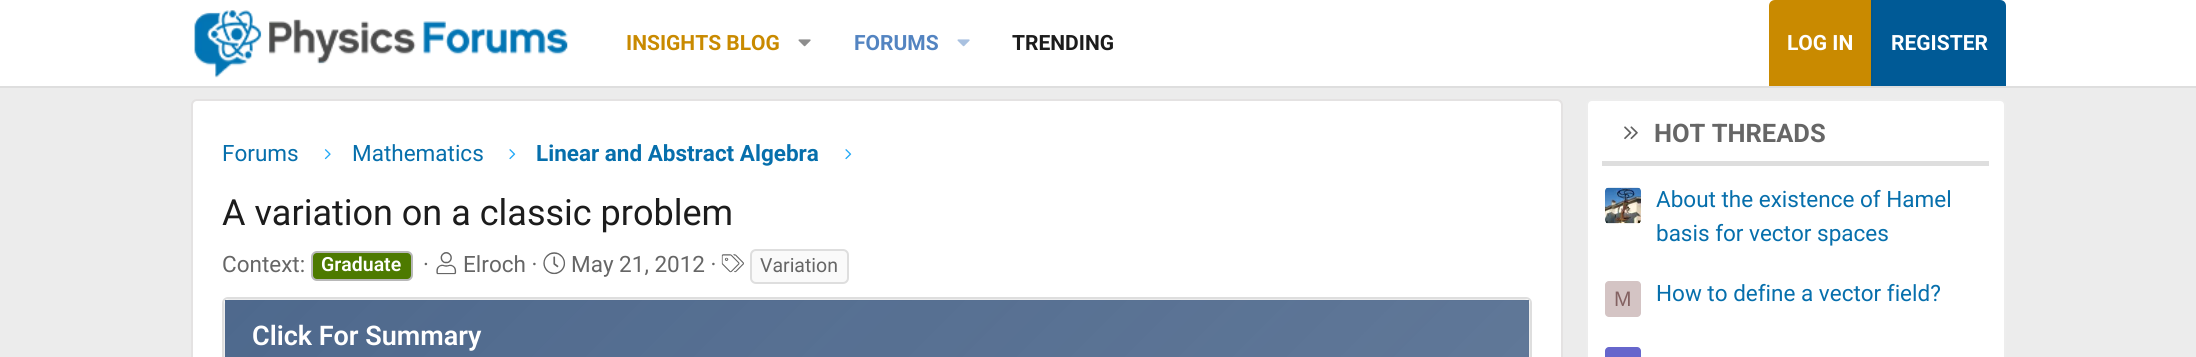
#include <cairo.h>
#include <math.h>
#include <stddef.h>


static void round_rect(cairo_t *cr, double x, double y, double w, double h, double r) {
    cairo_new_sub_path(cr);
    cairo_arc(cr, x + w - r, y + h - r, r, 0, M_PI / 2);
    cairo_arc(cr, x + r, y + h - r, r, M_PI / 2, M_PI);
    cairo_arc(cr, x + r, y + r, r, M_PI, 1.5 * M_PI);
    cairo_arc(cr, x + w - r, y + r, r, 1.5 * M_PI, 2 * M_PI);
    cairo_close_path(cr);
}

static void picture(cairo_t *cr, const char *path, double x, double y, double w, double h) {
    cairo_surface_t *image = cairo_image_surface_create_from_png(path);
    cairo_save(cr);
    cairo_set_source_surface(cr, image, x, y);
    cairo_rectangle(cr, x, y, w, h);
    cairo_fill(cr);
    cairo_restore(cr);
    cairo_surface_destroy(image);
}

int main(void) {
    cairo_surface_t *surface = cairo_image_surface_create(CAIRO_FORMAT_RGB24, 2196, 357);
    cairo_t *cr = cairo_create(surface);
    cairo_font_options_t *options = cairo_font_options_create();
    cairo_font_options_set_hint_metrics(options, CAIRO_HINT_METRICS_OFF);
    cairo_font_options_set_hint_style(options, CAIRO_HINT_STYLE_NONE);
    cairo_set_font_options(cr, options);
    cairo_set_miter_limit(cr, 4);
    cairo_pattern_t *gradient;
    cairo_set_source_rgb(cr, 0.922, 0.922, 0.922);
    cairo_paint(cr);
    cairo_set_source_rgb(cr, 1, 1, 1);
    cairo_rectangle(cr, 0, 0, 2196, 86);
    cairo_fill(cr);
    cairo_set_source_rgb(cr, 0.871, 0.871, 0.871);
    cairo_rectangle(cr, 0, 86, 2196, 2);
    cairo_fill(cr);
    picture(cr, "img1.png", 194, 10, 374, 68);
    cairo_select_font_face(cr, "Roboto", CAIRO_FONT_SLANT_NORMAL, CAIRO_FONT_WEIGHT_BOLD);
    cairo_set_font_size(cr, 21);
    cairo_set_source_rgb(cr, 0.788, 0.541, 0);
    cairo_move_to(cr, 626, 50);
    cairo_show_text(cr, "INSIGHTS BLOG");
    picture(cr, "img2.png", 798, 39, 13, 8);
    cairo_set_source_rgb(cr, 0.325, 0.518, 0.757);
    cairo_move_to(cr, 854, 50);
    cairo_show_text(cr, "FORUMS");
    picture(cr, "img3.png", 957, 39, 13, 8);
    cairo_set_source_rgb(cr, 0.11, 0.11, 0.11);
    cairo_move_to(cr, 1012, 50);
    cairo_show_text(cr, "TRENDING");
    cairo_set_source_rgb(cr, 0.788, 0.541, 0);
    cairo_new_path(cr);
    cairo_move_to(cr, 1775, 0);
    cairo_line_to(cr, 1871, 0);
    cairo_line_to(cr, 1871, 86);
    cairo_line_to(cr, 1769, 86);
    cairo_line_to(cr, 1769, 6);
    cairo_curve_to(cr, 1769, 2.5, 1771.5, 0, 1775, 0);
    cairo_close_path(cr);
    cairo_fill(cr);
    cairo_set_source_rgb(cr, 1, 1, 1);
    cairo_move_to(cr, 1787, 50);
    cairo_show_text(cr, "LOG IN");
    cairo_set_source_rgb(cr, 0, 0.353, 0.588);
    cairo_new_path(cr);
    cairo_move_to(cr, 1871, 0);
    cairo_line_to(cr, 2000, 0);
    cairo_curve_to(cr, 2003.5, 0, 2006, 2.5, 2006, 6);
    cairo_line_to(cr, 2006, 86);
    cairo_line_to(cr, 1871, 86);
    cairo_close_path(cr);
    cairo_fill(cr);
    cairo_set_source_rgb(cr, 0.004, 0.341, 0.565);
    cairo_rectangle(cr, 1871, 0, 2, 86);
    cairo_fill(cr);
    cairo_set_source_rgb(cr, 1, 1, 1);
    cairo_move_to(cr, 1891, 50);
    cairo_show_text(cr, "REGISTER");
    round_rect(cr, 192, 100, 1370, 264, 5);
    cairo_fill_preserve(cr);
    cairo_set_source_rgb(cr, 0.894, 0.886, 0.886);
    cairo_stroke(cr);
    cairo_select_font_face(cr, "Roboto", CAIRO_FONT_SLANT_NORMAL, CAIRO_FONT_WEIGHT_NORMAL);
    cairo_set_font_size(cr, 22.5);
    cairo_set_source_rgb(cr, 0.024, 0.435, 0.675);
    cairo_move_to(cr, 222, 161);
    cairo_show_text(cr, "Forums");
    picture(cr, "img4.png", 324, 149, 7, 11);
    cairo_move_to(cr, 352, 161);
    cairo_show_text(cr, "Mathematics");
    picture(cr, "img5.png", 509, 149, 7, 11);
    cairo_select_font_face(cr, "Roboto", CAIRO_FONT_SLANT_NORMAL, CAIRO_FONT_WEIGHT_BOLD);
    cairo_move_to(cr, 536, 161);
    cairo_show_text(cr, "Linear and Abstract Algebra");
    picture(cr, "img5.png", 845, 149, 7, 11);
    cairo_select_font_face(cr, "Roboto", CAIRO_FONT_SLANT_NORMAL, CAIRO_FONT_WEIGHT_NORMAL);
    cairo_set_font_size(cr, 36);
    cairo_set_source_rgb(cr, 0.11, 0.11, 0.11);
    cairo_move_to(cr, 222, 225);
    cairo_show_text(cr, "A variation on a classic problem");
    cairo_set_font_size(cr, 22.5);
    cairo_set_source_rgb(cr, 0.4, 0.4, 0.4);
    cairo_move_to(cr, 222, 272);
    cairo_show_text(cr, "Context:");
    cairo_set_source_rgb(cr, 0.302, 0.478, 0);
    round_rect(cr, 312, 252, 100, 28, 5);
    cairo_fill_preserve(cr);
    cairo_set_source_rgb(cr, 0.722, 0.722, 0.722);
    cairo_stroke(cr);
    cairo_select_font_face(cr, "Roboto SemiBold", CAIRO_FONT_SLANT_NORMAL, CAIRO_FONT_WEIGHT_NORMAL);
    cairo_set_font_size(cr, 19.5);
    cairo_set_source_rgb(cr, 1, 1, 1);
    cairo_move_to(cr, 321, 271);
    cairo_show_text(cr, "Graduate");
    cairo_select_font_face(cr, "Roboto", CAIRO_FONT_SLANT_NORMAL, CAIRO_FONT_WEIGHT_NORMAL);
    cairo_set_font_size(cr, 22.5);
    cairo_set_source_rgb(cr, 0.4, 0.4, 0.4);
    cairo_move_to(cr, 423, 272);
    cairo_show_text(cr, "·");
    picture(cr, "img6.png", 436, 252, 21, 23);
    cairo_move_to(cr, 463, 272);
    cairo_show_text(cr, "Elroch ·");
    picture(cr, "img7.png", 543, 252, 23, 23);
    cairo_move_to(cr, 571, 272);
    cairo_show_text(cr, "May 21, 2012 ·");
    picture(cr, "img8.png", 721, 254, 23, 19);
    cairo_set_source_rgb(cr, 0.98, 0.98, 0.98);
    round_rect(cr, 751, 250, 97, 33, 5);
    cairo_fill_preserve(cr);
    cairo_set_source_rgb(cr, 0.871, 0.871, 0.871);
    cairo_stroke(cr);
    cairo_set_font_size(cr, 19.5);
    cairo_set_source_rgb(cr, 0.4, 0.4, 0.4);
    cairo_move_to(cr, 760, 272);
    cairo_show_text(cr, "Variation");
    round_rect(cr, 223, 298, 1308, 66, 5);
    cairo_set_source_rgb(cr, 0.871, 0.871, 0.871);
    cairo_stroke(cr);
    cairo_set_source_rgb(cr, 0.98, 0.98, 0.98);
    round_rect(cr, 225, 300, 1304, 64, 5);
    cairo_fill_preserve(cr);
    cairo_set_source_rgb(cr, 0.929, 0.929, 0.929);
    cairo_stroke(cr);
    gradient = cairo_pattern_create_linear(533, -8, 1220, 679);
    cairo_pattern_add_color_stop_rgba(gradient, 0, 0.271, 0.38, 0.529, 0.95);
    cairo_pattern_add_color_stop_rgba(gradient, 1, 0.271, 0.38, 0.529, 0.85);
    cairo_set_source(cr, gradient);
    cairo_pattern_destroy(gradient);
    cairo_rectangle(cr, 225, 300, 1304, 57);
    cairo_fill(cr);
    cairo_select_font_face(cr, "Roboto SemiBold", CAIRO_FONT_SLANT_NORMAL, CAIRO_FONT_WEIGHT_NORMAL);
    cairo_set_font_size(cr, 27);
    cairo_set_source_rgb(cr, 1, 1, 1);
    cairo_move_to(cr, 252, 345);
    cairo_show_text(cr, "Click For Summary");
    round_rect(cr, 1587, 100, 418, 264, 5);
    cairo_fill_preserve(cr);
    cairo_set_source_rgb(cr, 0.929, 0.929, 0.929);
    cairo_stroke(cr);
    cairo_set_source_rgb(cr, 0.871, 0.871, 0.871);
    cairo_rectangle(cr, 1602, 161, 387, 5);
    cairo_fill(cr);
    picture(cr, "img9.png", 1624, 126, 14, 14);
    cairo_select_font_face(cr, "Roboto", CAIRO_FONT_SLANT_NORMAL, CAIRO_FONT_WEIGHT_BOLD);
    cairo_set_font_size(cr, 25.5);
    cairo_set_source_rgb(cr, 0.4, 0.4, 0.4);
    cairo_move_to(cr, 1654, 142);
    cairo_show_text(cr, "HOT THREADS");
    picture(cr, "img10.png", 1605, 187, 36, 37);
    cairo_select_font_face(cr, "Roboto", CAIRO_FONT_SLANT_NORMAL, CAIRO_FONT_WEIGHT_NORMAL);
    cairo_set_font_size(cr, 22.5);
    cairo_set_source_rgb(cr, 0.024, 0.435, 0.675);
    cairo_move_to(cr, 1656, 207);
    cairo_show_text(cr, "About the existence of Hamel");
    cairo_move_to(cr, 1656, 241);
    cairo_show_text(cr, "basis for vector spaces");
    cairo_set_source_rgb(cr, 0.831, 0.769, 0.769);
    round_rect(cr, 1605, 281, 36, 36, 4);
    cairo_fill(cr);
    cairo_select_font_face(cr, "Liberation Sans", CAIRO_FONT_SLANT_NORMAL, CAIRO_FONT_WEIGHT_NORMAL);
    cairo_set_font_size(cr, 21);
    cairo_set_source_rgb(cr, 0.518, 0.384, 0.384);
    cairo_move_to(cr, 1614, 306);
    cairo_show_text(cr, "M");
    cairo_select_font_face(cr, "Roboto", CAIRO_FONT_SLANT_NORMAL, CAIRO_FONT_WEIGHT_NORMAL);
    cairo_set_font_size(cr, 22.5);
    cairo_set_source_rgb(cr, 0.024, 0.435, 0.675);
    cairo_move_to(cr, 1656, 301);
    cairo_show_text(cr, "How to define a vector field?");
    cairo_set_source_rgb(cr, 0.4, 0.4, 0.8);
    round_rect(cr, 1605, 347, 36, 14, 4);
    cairo_fill(cr);
    cairo_surface_write_to_png(surface, "page.png");
    cairo_font_options_destroy(options);
    cairo_destroy(cr);
    cairo_surface_destroy(surface);
    return 0;
}
